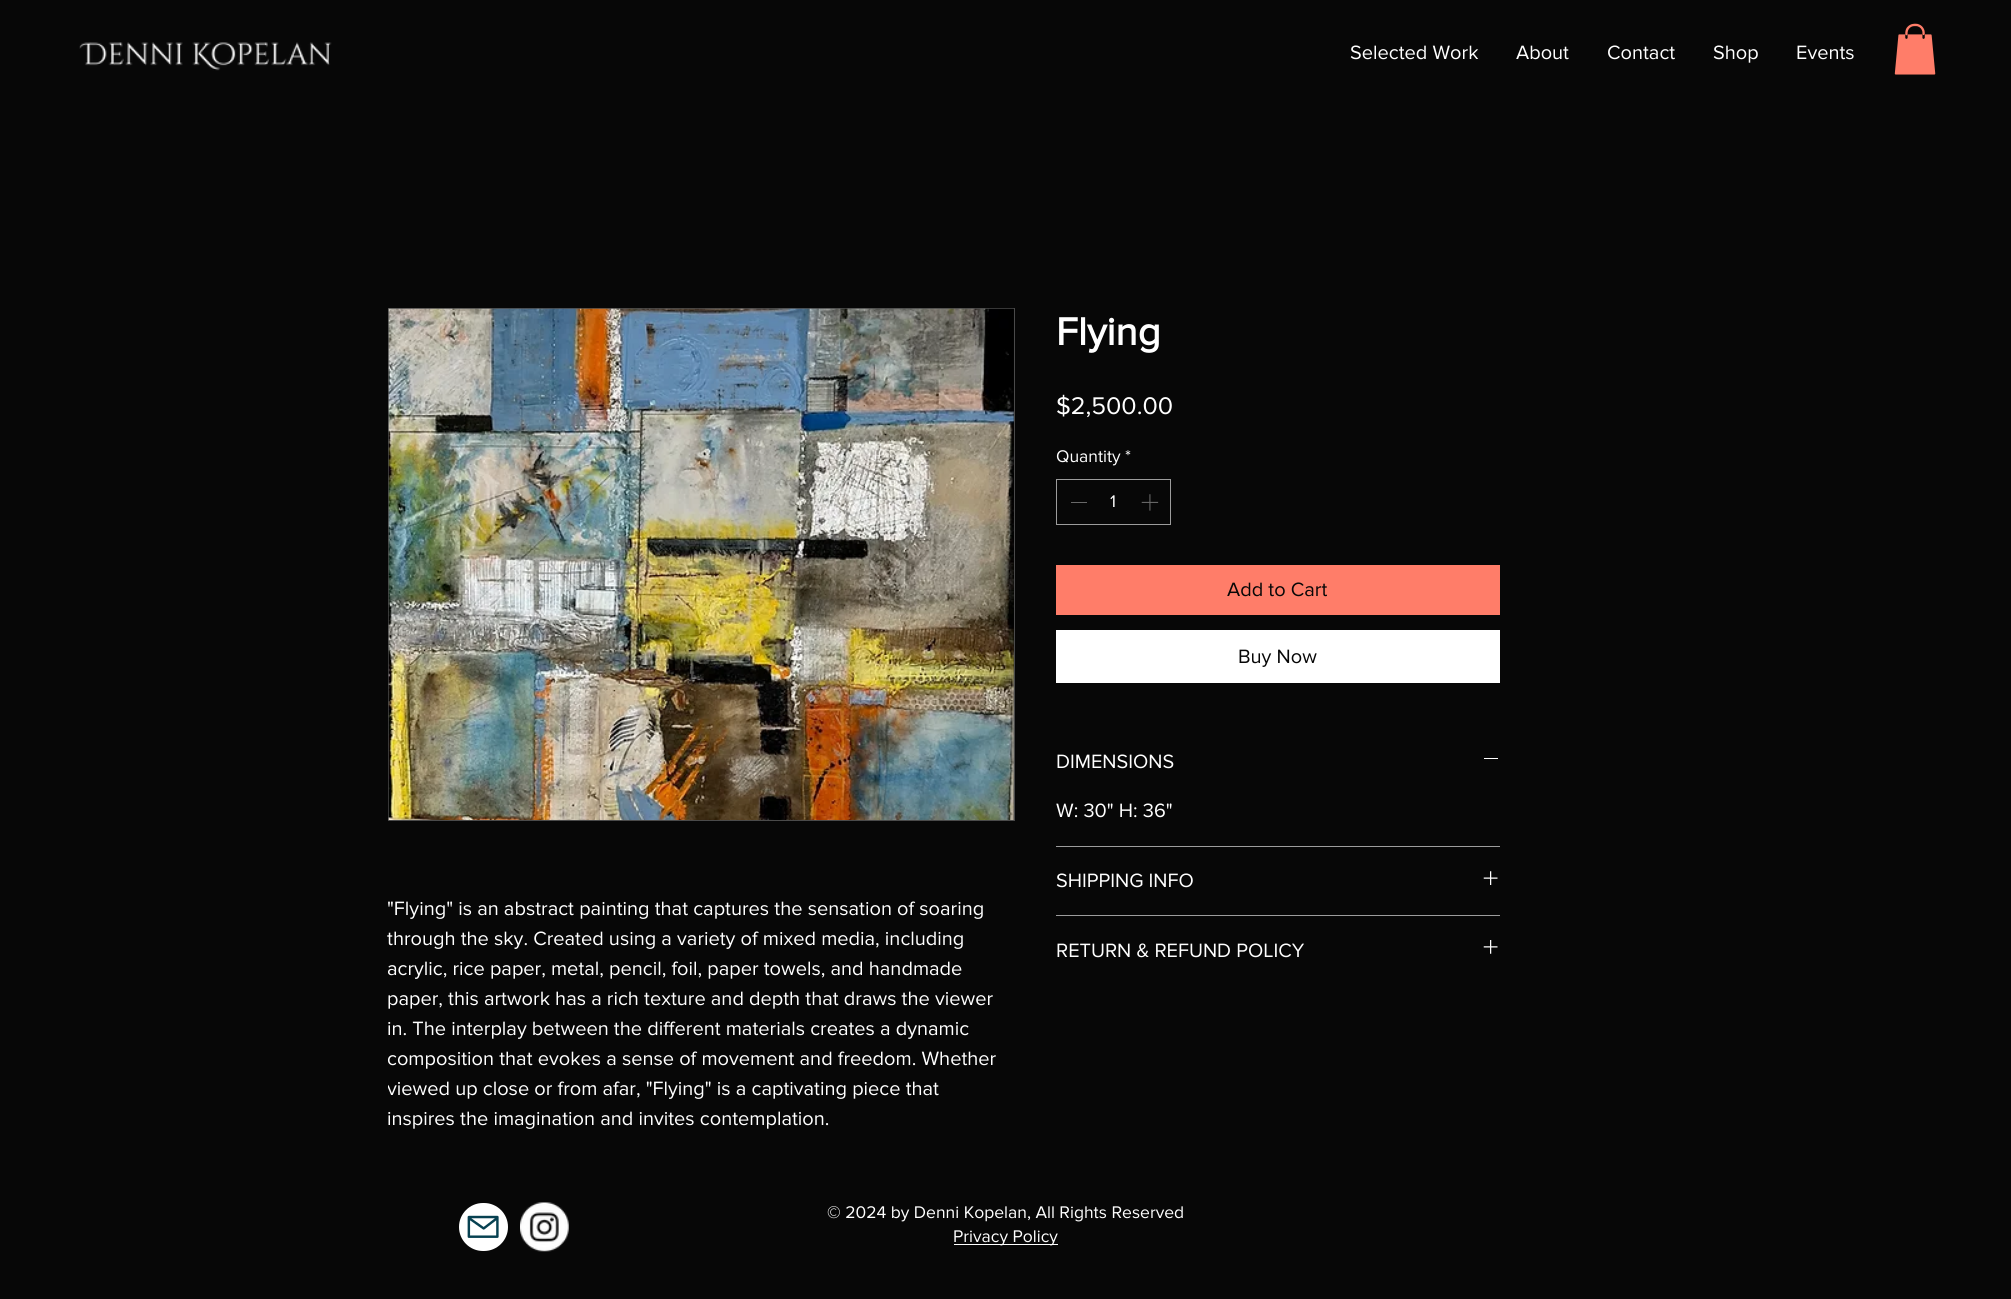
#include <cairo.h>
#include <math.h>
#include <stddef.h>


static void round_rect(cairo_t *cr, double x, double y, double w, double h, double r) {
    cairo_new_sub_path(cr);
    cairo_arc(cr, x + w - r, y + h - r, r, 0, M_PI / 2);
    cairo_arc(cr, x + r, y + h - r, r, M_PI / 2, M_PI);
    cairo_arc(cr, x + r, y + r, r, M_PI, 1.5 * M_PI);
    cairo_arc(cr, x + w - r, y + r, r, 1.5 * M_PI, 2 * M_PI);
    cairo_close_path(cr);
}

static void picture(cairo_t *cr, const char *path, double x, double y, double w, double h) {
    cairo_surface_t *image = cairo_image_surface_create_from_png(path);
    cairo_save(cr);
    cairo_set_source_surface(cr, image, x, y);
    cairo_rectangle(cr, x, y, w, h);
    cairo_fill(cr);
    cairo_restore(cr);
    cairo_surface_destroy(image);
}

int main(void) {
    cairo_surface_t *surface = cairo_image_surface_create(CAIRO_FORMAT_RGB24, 2011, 1299);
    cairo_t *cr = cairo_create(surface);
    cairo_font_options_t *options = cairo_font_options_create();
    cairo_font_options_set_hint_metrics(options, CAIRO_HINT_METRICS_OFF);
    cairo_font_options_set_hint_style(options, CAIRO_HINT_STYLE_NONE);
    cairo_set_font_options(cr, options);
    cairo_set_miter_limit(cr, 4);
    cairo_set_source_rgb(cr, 0.031, 0.031, 0.031);
    cairo_paint(cr);
    picture(cr, "img1.png", 79, 42, 253, 29);
    cairo_select_font_face(cr, "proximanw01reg", CAIRO_FONT_SLANT_NORMAL, CAIRO_FONT_WEIGHT_NORMAL);
    cairo_set_font_size(cr, 20);
    cairo_set_source_rgb(cr, 1, 1, 1);
    cairo_move_to(cr, 1350, 59);
    cairo_show_text(cr, "Selected Work");
    cairo_move_to(cr, 1516, 59);
    cairo_show_text(cr, "About");
    cairo_move_to(cr, 1607, 59);
    cairo_show_text(cr, "Contact");
    cairo_move_to(cr, 1713, 59);
    cairo_show_text(cr, "Shop");
    cairo_move_to(cr, 1796, 59);
    cairo_show_text(cr, "Events");
    picture(cr, "img2.png", 1894, 23, 42, 52);
    cairo_select_font_face(cr, "proximanw01reg", CAIRO_FONT_SLANT_NORMAL, CAIRO_FONT_WEIGHT_BOLD);
    cairo_set_font_size(cr, 40);
    cairo_move_to(cr, 1056, 345);
    cairo_show_text(cr, "Flying");
    cairo_select_font_face(cr, "proximanw01reg", CAIRO_FONT_SLANT_NORMAL, CAIRO_FONT_WEIGHT_NORMAL);
    cairo_set_font_size(cr, 25);
    cairo_move_to(cr, 1056, 414);
    cairo_show_text(cr, "$2,500.00");
    cairo_set_font_size(cr, 17.5);
    cairo_move_to(cr, 1056, 462);
    cairo_show_text(cr, "Quantity");
    cairo_move_to(cr, 1125, 462);
    cairo_show_text(cr, "*");
    cairo_rectangle(cr, 1056.5, 479.5, 114, 45);
    cairo_set_source_rgb(cr, 0.612, 0.612, 0.612);
    cairo_set_line_width(cr, 1);
    cairo_stroke(cr);
    cairo_set_source_rgb(cr, 0.408, 0.408, 0.408);
    cairo_rectangle(cr, 1071, 502, 16, 1);
    cairo_fill(cr);
    cairo_set_source_rgb(cr, 1, 1, 1);
    cairo_move_to(cr, 1110, 507);
    cairo_show_text(cr, "1");
    picture(cr, "img3.png", 1141, 494, 18, 17);
    cairo_set_source_rgb(cr, 1, 0.49, 0.412);
    cairo_rectangle(cr, 1056, 565, 444, 50);
    cairo_fill(cr);
    cairo_set_font_size(cr, 20);
    cairo_set_source_rgb(cr, 0.031, 0.031, 0.031);
    cairo_move_to(cr, 1227, 596);
    cairo_show_text(cr, "Add to Cart");
    cairo_set_source_rgb(cr, 1, 1, 1);
    cairo_rectangle(cr, 1056, 630, 444, 53);
    cairo_fill(cr);
    cairo_set_source_rgb(cr, 0.031, 0.031, 0.031);
    cairo_move_to(cr, 1238, 663);
    cairo_show_text(cr, "Buy Now");
    cairo_set_source_rgb(cr, 0.612, 0.612, 0.612);
    cairo_rectangle(cr, 1056, 846, 444, 1);
    cairo_fill(cr);
    cairo_set_source_rgb(cr, 1, 1, 1);
    cairo_move_to(cr, 1056, 768);
    cairo_show_text(cr, "DIMENSIONS");
    cairo_rectangle(cr, 1484, 758, 14, 1);
    cairo_fill(cr);
    cairo_move_to(cr, 1056, 817);
    cairo_show_text(cr, "W: 30\" H: 36\"");
    cairo_set_source_rgb(cr, 0.612, 0.612, 0.612);
    cairo_rectangle(cr, 1056, 915, 444, 1);
    cairo_fill(cr);
    cairo_set_source_rgb(cr, 1, 1, 1);
    cairo_move_to(cr, 1056, 887);
    cairo_show_text(cr, "SHIPPING INFO");
    picture(cr, "img4.png", 1483, 871, 15, 14);
    cairo_move_to(cr, 1056, 957);
    cairo_show_text(cr, "RETURN & REFUND POLICY");
    picture(cr, "img5.png", 1483, 940, 15, 14);
    cairo_rectangle(cr, 388.5, 308.5, 626, 512);
    cairo_set_source_rgb(cr, 0.29, 0.29, 0.29);
    cairo_stroke(cr);
    picture(cr, "img6.png", 388, 308, 626, 512);
    cairo_set_source_rgb(cr, 1, 1, 1);
    cairo_move_to(cr, 387, 915);
    cairo_show_text(cr, "\"Flying\" is an abstract painting that captures the sensation of soaring");
    cairo_move_to(cr, 387, 945);
    cairo_show_text(cr, "through the sky. Created using a variety of mixed media, including");
    cairo_move_to(cr, 387, 975);
    cairo_show_text(cr, "acrylic, rice paper, metal, pencil, foil, paper towels, and handmade");
    cairo_move_to(cr, 387, 1005);
    cairo_show_text(cr, "paper, this artwork has a rich texture and depth that draws the viewer");
    cairo_move_to(cr, 387, 1035);
    cairo_show_text(cr, "in. The interplay between the different materials creates a dynamic");
    cairo_move_to(cr, 387, 1065);
    cairo_show_text(cr, "composition that evokes a sense of movement and freedom. Whether");
    cairo_save(cr);
    cairo_rectangle(cr, 388, 894, 625, 240);
    cairo_clip(cr);
    cairo_move_to(cr, 387, 1095);
    cairo_show_text(cr, "viewed up close or from afar, \"Flying\" is a captivating piece that");
    cairo_restore(cr);
    cairo_move_to(cr, 387, 1125);
    cairo_show_text(cr, "inspires the imagination and invites contemplation.");
    round_rect(cr, 459, 1203, 49, 48, 24);
    cairo_fill(cr);
    picture(cr, "img7.png", 467, 1215, 32, 23);
    picture(cr, "img8.png", 520, 1202, 49, 50);
    cairo_set_font_size(cr, 17.5);
    cairo_move_to(cr, 827, 1218);
    cairo_show_text(cr, "© 2024 by Denni Kopelan, All Rights Reserved");
    cairo_rectangle(cr, 954, 1244, 104, 1);
    cairo_fill(cr);
    cairo_move_to(cr, 953, 1242);
    cairo_show_text(cr, "Privacy Policy");
    cairo_surface_write_to_png(surface, "page.png");
    cairo_font_options_destroy(options);
    cairo_destroy(cr);
    cairo_surface_destroy(surface);
    return 0;
}
